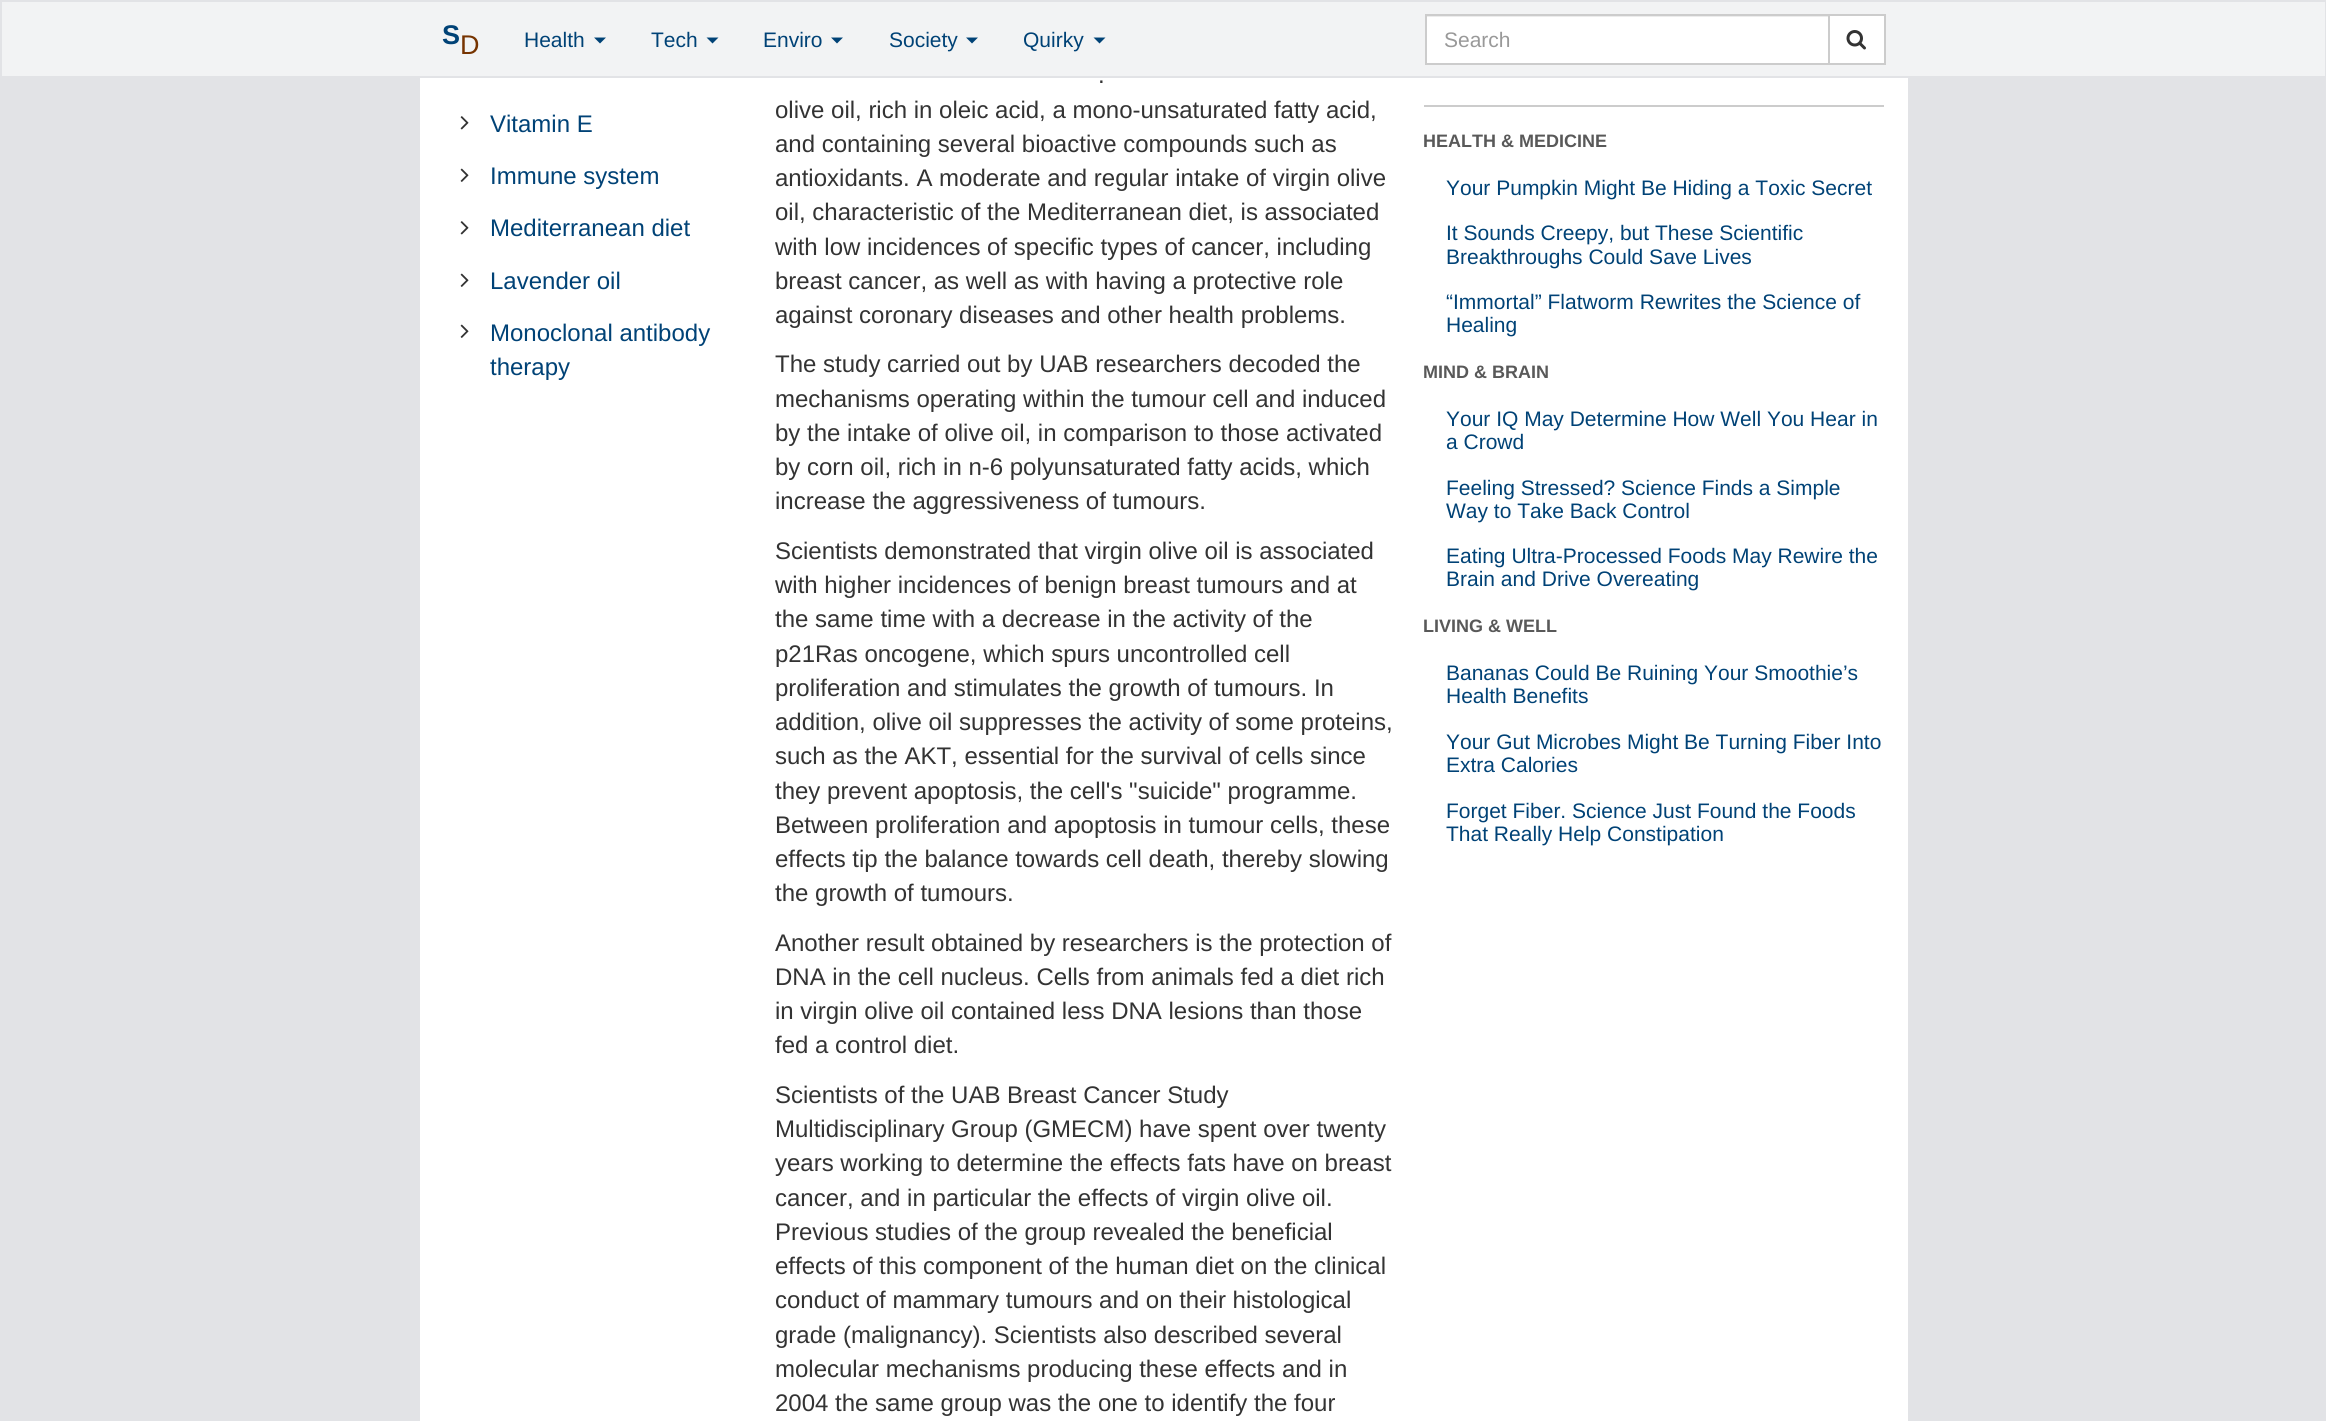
#include <cairo.h>
#include <math.h>
#include <stddef.h>


static void picture(cairo_t *cr, const char *path, double x, double y, double w, double h) {
    cairo_surface_t *image = cairo_image_surface_create_from_png(path);
    cairo_save(cr);
    cairo_set_source_surface(cr, image, x, y);
    cairo_rectangle(cr, x, y, w, h);
    cairo_fill(cr);
    cairo_restore(cr);
    cairo_surface_destroy(image);
}

int main(void) {
    cairo_surface_t *surface = cairo_image_surface_create(CAIRO_FORMAT_RGB24, 2326, 1421);
    cairo_t *cr = cairo_create(surface);
    cairo_font_options_t *options = cairo_font_options_create();
    cairo_font_options_set_hint_metrics(options, CAIRO_HINT_METRICS_OFF);
    cairo_font_options_set_hint_style(options, CAIRO_HINT_STYLE_NONE);
    cairo_set_font_options(cr, options);
    cairo_set_miter_limit(cr, 4);
    cairo_set_source_rgb(cr, 0.886, 0.89, 0.902);
    cairo_paint(cr);
    cairo_set_source_rgb(cr, 0.949, 0.953, 0.957);
    cairo_rectangle(cr, 2, 2, 2323, 74);
    cairo_fill(cr);
    cairo_select_font_face(cr, "Liberation Sans", CAIRO_FONT_SLANT_NORMAL, CAIRO_FONT_WEIGHT_BOLD);
    cairo_set_font_size(cr, 27);
    cairo_set_source_rgb(cr, 0, 0.259, 0.463);
    cairo_move_to(cr, 442, 44);
    cairo_show_text(cr, "S");
    cairo_select_font_face(cr, "Liberation Sans", CAIRO_FONT_SLANT_NORMAL, CAIRO_FONT_WEIGHT_NORMAL);
    cairo_set_source_rgb(cr, 0.463, 0.2, 0);
    cairo_move_to(cr, 460, 54);
    cairo_show_text(cr, "D");
    cairo_set_font_size(cr, 21);
    cairo_set_source_rgb(cr, 0, 0.259, 0.463);
    cairo_move_to(cr, 524, 47);
    cairo_show_text(cr, "Health");
    cairo_new_path(cr);
    cairo_move_to(cr, 594, 37.5);
    cairo_line_to(cr, 606, 37.5);
    cairo_line_to(cr, 600, 43.5);
    cairo_close_path(cr);
    cairo_fill(cr);
    cairo_move_to(cr, 651, 47);
    cairo_show_text(cr, "Tech");
    cairo_new_path(cr);
    cairo_move_to(cr, 706.5, 37.5);
    cairo_line_to(cr, 718.5, 37.5);
    cairo_line_to(cr, 712.5, 43.5);
    cairo_close_path(cr);
    cairo_fill(cr);
    cairo_move_to(cr, 763, 47);
    cairo_show_text(cr, "Enviro");
    cairo_new_path(cr);
    cairo_move_to(cr, 831, 37.5);
    cairo_line_to(cr, 843, 37.5);
    cairo_line_to(cr, 837, 43.5);
    cairo_close_path(cr);
    cairo_fill(cr);
    cairo_move_to(cr, 889, 47);
    cairo_show_text(cr, "Society");
    cairo_new_path(cr);
    cairo_move_to(cr, 966, 37.5);
    cairo_line_to(cr, 978, 37.5);
    cairo_line_to(cr, 972, 43.5);
    cairo_close_path(cr);
    cairo_fill(cr);
    cairo_move_to(cr, 1023, 47);
    cairo_show_text(cr, "Quirky");
    cairo_new_path(cr);
    cairo_move_to(cr, 1093.5, 37.5);
    cairo_line_to(cr, 1105.5, 37.5);
    cairo_line_to(cr, 1099.5, 43.5);
    cairo_close_path(cr);
    cairo_fill(cr);
    cairo_set_source_rgb(cr, 1, 1, 1);
    cairo_rectangle(cr, 1830, 16, 54, 47);
    cairo_fill(cr);
    cairo_rectangle(cr, 1828, 15, 57, 49);
    cairo_set_source_rgb(cr, 0.8, 0.8, 0.8);
    cairo_stroke(cr);
    cairo_set_source_rgb(cr, 1, 1, 1);
    cairo_rectangle(cr, 1427, 17, 401, 46);
    cairo_fill(cr);
    cairo_set_source_rgb(cr, 0.925, 0.925, 0.925);
    cairo_rectangle(cr, 1427, 16, 402, 1);
    cairo_fill(cr);
    cairo_rectangle(cr, 1426, 15, 403, 49);
    cairo_set_source_rgb(cr, 0.8, 0.8, 0.8);
    cairo_stroke(cr);
    cairo_set_source_rgb(cr, 0.6, 0.6, 0.6);
    cairo_move_to(cr, 1444, 47);
    cairo_show_text(cr, "Search");
    picture(cr, "img1.png", 1846, 30, 20, 20);
    cairo_set_source_rgb(cr, 1, 1, 1);
    cairo_rectangle(cr, 420, 78, 1488, 1343);
    cairo_fill(cr);
    picture(cr, "img2.png", 460, 116, 9, 14);
    cairo_set_font_size(cr, 24);
    cairo_set_source_rgb(cr, 0, 0.259, 0.463);
    cairo_move_to(cr, 490, 132);
    cairo_show_text(cr, "Vitamin E");
    picture(cr, "img3.png", 460, 168, 9, 14);
    cairo_move_to(cr, 490, 184);
    cairo_show_text(cr, "Immune system");
    picture(cr, "img2.png", 460, 221, 9, 14);
    cairo_move_to(cr, 490, 236);
    cairo_show_text(cr, "Mediterranean diet");
    picture(cr, "img3.png", 460, 273, 9, 14);
    cairo_move_to(cr, 490, 289);
    cairo_show_text(cr, "Lavender oil");
    picture(cr, "img3.png", 460, 324, 9, 14);
    cairo_move_to(cr, 490, 341);
    cairo_show_text(cr, "Monoclonal antibody");
    cairo_move_to(cr, 490, 375);
    cairo_show_text(cr, "therapy");
    cairo_set_source_rgb(cr, 0.2, 0.2, 0.2);
    cairo_move_to(cr, 1098, 83);
    cairo_show_text(cr, ".");
    cairo_move_to(cr, 775, 118);
    cairo_show_text(cr, "olive oil, rich in oleic acid, a mono-unsaturated fatty acid,");
    cairo_move_to(cr, 775, 152);
    cairo_show_text(cr, "and containing several bioactive compounds such as");
    cairo_move_to(cr, 775, 186);
    cairo_show_text(cr, "antioxidants. A moderate and regular intake of virgin olive");
    cairo_move_to(cr, 775, 220);
    cairo_show_text(cr, "oil, characteristic of the Mediterranean diet, is associated");
    cairo_move_to(cr, 775, 255);
    cairo_show_text(cr, "with low incidences of specific types of cancer, including");
    cairo_move_to(cr, 775, 289);
    cairo_show_text(cr, "breast cancer, as well as with having a protective role");
    cairo_move_to(cr, 775, 323);
    cairo_show_text(cr, "against coronary diseases and other health problems.");
    cairo_move_to(cr, 775, 372);
    cairo_show_text(cr, "The study carried out by UAB researchers decoded the");
    cairo_move_to(cr, 775, 407);
    cairo_show_text(cr, "mechanisms operating within the tumour cell and induced");
    cairo_move_to(cr, 775, 441);
    cairo_show_text(cr, "by the intake of olive oil, in comparison to those activated");
    cairo_move_to(cr, 775, 475);
    cairo_show_text(cr, "by corn oil, rich in n-6 polyunsaturated fatty acids, which");
    cairo_move_to(cr, 775, 509);
    cairo_show_text(cr, "increase the aggressiveness of tumours.");
    cairo_move_to(cr, 775, 559);
    cairo_show_text(cr, "Scientists demonstrated that virgin olive oil is associated");
    cairo_move_to(cr, 775, 593);
    cairo_show_text(cr, "with higher incidences of benign breast tumours and at");
    cairo_move_to(cr, 775, 627);
    cairo_show_text(cr, "the same time with a decrease in the activity of the");
    cairo_move_to(cr, 775, 662);
    cairo_show_text(cr, "p21Ras oncogene, which spurs uncontrolled cell");
    cairo_move_to(cr, 775, 696);
    cairo_show_text(cr, "proliferation and stimulates the growth of tumours. In");
    cairo_move_to(cr, 775, 730);
    cairo_show_text(cr, "addition, olive oil suppresses the activity of some proteins,");
    cairo_move_to(cr, 775, 764);
    cairo_show_text(cr, "such as the AKT, essential for the survival of cells since");
    cairo_move_to(cr, 775, 799);
    cairo_show_text(cr, "they prevent apoptosis, the cell's \"suicide\" programme.");
    cairo_move_to(cr, 775, 833);
    cairo_show_text(cr, "Between proliferation and apoptosis in tumour cells, these");
    cairo_move_to(cr, 775, 867);
    cairo_show_text(cr, "effects tip the balance towards cell death, thereby slowing");
    cairo_move_to(cr, 775, 901);
    cairo_show_text(cr, "the growth of tumours.");
    cairo_move_to(cr, 775, 951);
    cairo_show_text(cr, "Another result obtained by researchers is the protection of");
    cairo_move_to(cr, 775, 985);
    cairo_show_text(cr, "DNA in the cell nucleus. Cells from animals fed a diet rich");
    cairo_move_to(cr, 775, 1019);
    cairo_show_text(cr, "in virgin olive oil contained less DNA lesions than those");
    cairo_move_to(cr, 775, 1053);
    cairo_show_text(cr, "fed a control diet.");
    cairo_move_to(cr, 775, 1103);
    cairo_show_text(cr, "Scientists of the UAB Breast Cancer Study");
    cairo_move_to(cr, 775, 1137);
    cairo_show_text(cr, "Multidisciplinary Group (GMECM) have spent over twenty");
    cairo_move_to(cr, 775, 1171);
    cairo_show_text(cr, "years working to determine the effects fats have on breast");
    cairo_move_to(cr, 775, 1206);
    cairo_show_text(cr, "cancer, and in particular the effects of virgin olive oil.");
    cairo_move_to(cr, 775, 1240);
    cairo_show_text(cr, "Previous studies of the group revealed the beneficial");
    cairo_move_to(cr, 775, 1274);
    cairo_show_text(cr, "effects of this component of the human diet on the clinical");
    cairo_move_to(cr, 775, 1308);
    cairo_show_text(cr, "conduct of mammary tumours and on their histological");
    cairo_move_to(cr, 775, 1343);
    cairo_show_text(cr, "grade (malignancy). Scientists also described several");
    cairo_move_to(cr, 775, 1377);
    cairo_show_text(cr, "molecular mechanisms producing these effects and in");
    cairo_move_to(cr, 775, 1411);
    cairo_show_text(cr, "2004 the same group was the one to identify the four");
    cairo_set_source_rgb(cr, 0.8, 0.8, 0.8);
    cairo_rectangle(cr, 1424, 105, 460, 2);
    cairo_fill(cr);
    cairo_select_font_face(cr, "Liberation Sans", CAIRO_FONT_SLANT_NORMAL, CAIRO_FONT_WEIGHT_BOLD);
    cairo_set_font_size(cr, 18);
    cairo_set_source_rgb(cr, 0.349, 0.349, 0.349);
    cairo_move_to(cr, 1423, 147);
    cairo_show_text(cr, "HEALTH & MEDICINE");
    cairo_select_font_face(cr, "Liberation Sans", CAIRO_FONT_SLANT_NORMAL, CAIRO_FONT_WEIGHT_NORMAL);
    cairo_set_font_size(cr, 21);
    cairo_set_source_rgb(cr, 0, 0.259, 0.463);
    cairo_move_to(cr, 1446, 195);
    cairo_show_text(cr, "Your Pumpkin Might Be Hiding a Toxic Secret");
    cairo_move_to(cr, 1446, 240);
    cairo_show_text(cr, "It Sounds Creepy, but These Scientific");
    cairo_move_to(cr, 1446, 264);
    cairo_show_text(cr, "Breakthroughs Could Save Lives");
    cairo_move_to(cr, 1446, 309);
    cairo_show_text(cr, "“Immortal” Flatworm Rewrites the Science of");
    cairo_move_to(cr, 1446, 332);
    cairo_show_text(cr, "Healing");
    cairo_select_font_face(cr, "Liberation Sans", CAIRO_FONT_SLANT_NORMAL, CAIRO_FONT_WEIGHT_BOLD);
    cairo_set_font_size(cr, 18);
    cairo_set_source_rgb(cr, 0.349, 0.349, 0.349);
    cairo_move_to(cr, 1423, 378);
    cairo_show_text(cr, "MIND & BRAIN");
    cairo_select_font_face(cr, "Liberation Sans", CAIRO_FONT_SLANT_NORMAL, CAIRO_FONT_WEIGHT_NORMAL);
    cairo_set_font_size(cr, 21);
    cairo_set_source_rgb(cr, 0, 0.259, 0.463);
    cairo_move_to(cr, 1446, 426);
    cairo_show_text(cr, "Your IQ May Determine How Well You Hear in");
    cairo_move_to(cr, 1446, 449);
    cairo_show_text(cr, "a Crowd");
    cairo_move_to(cr, 1446, 495);
    cairo_show_text(cr, "Feeling Stressed? Science Finds a Simple");
    cairo_move_to(cr, 1446, 518);
    cairo_show_text(cr, "Way to Take Back Control");
    cairo_move_to(cr, 1446, 563);
    cairo_show_text(cr, "Eating Ultra-Processed Foods May Rewire the");
    cairo_move_to(cr, 1446, 586);
    cairo_show_text(cr, "Brain and Drive Overeating");
    cairo_select_font_face(cr, "Liberation Sans", CAIRO_FONT_SLANT_NORMAL, CAIRO_FONT_WEIGHT_BOLD);
    cairo_set_font_size(cr, 18);
    cairo_set_source_rgb(cr, 0.349, 0.349, 0.349);
    cairo_move_to(cr, 1423, 632);
    cairo_show_text(cr, "LIVING & WELL");
    cairo_select_font_face(cr, "Liberation Sans", CAIRO_FONT_SLANT_NORMAL, CAIRO_FONT_WEIGHT_NORMAL);
    cairo_set_font_size(cr, 21);
    cairo_set_source_rgb(cr, 0, 0.259, 0.463);
    cairo_move_to(cr, 1446, 680);
    cairo_show_text(cr, "Bananas Could Be Ruining Your Smoothie’s");
    cairo_move_to(cr, 1446, 703);
    cairo_show_text(cr, "Health Benefits");
    cairo_move_to(cr, 1446, 749);
    cairo_show_text(cr, "Your Gut Microbes Might Be Turning Fiber Into");
    cairo_move_to(cr, 1446, 772);
    cairo_show_text(cr, "Extra Calories");
    cairo_move_to(cr, 1446, 818);
    cairo_show_text(cr, "Forget Fiber. Science Just Found the Foods");
    cairo_move_to(cr, 1446, 841);
    cairo_show_text(cr, "That Really Help Constipation");
    cairo_surface_write_to_png(surface, "page.png");
    cairo_font_options_destroy(options);
    cairo_destroy(cr);
    cairo_surface_destroy(surface);
    return 0;
}
